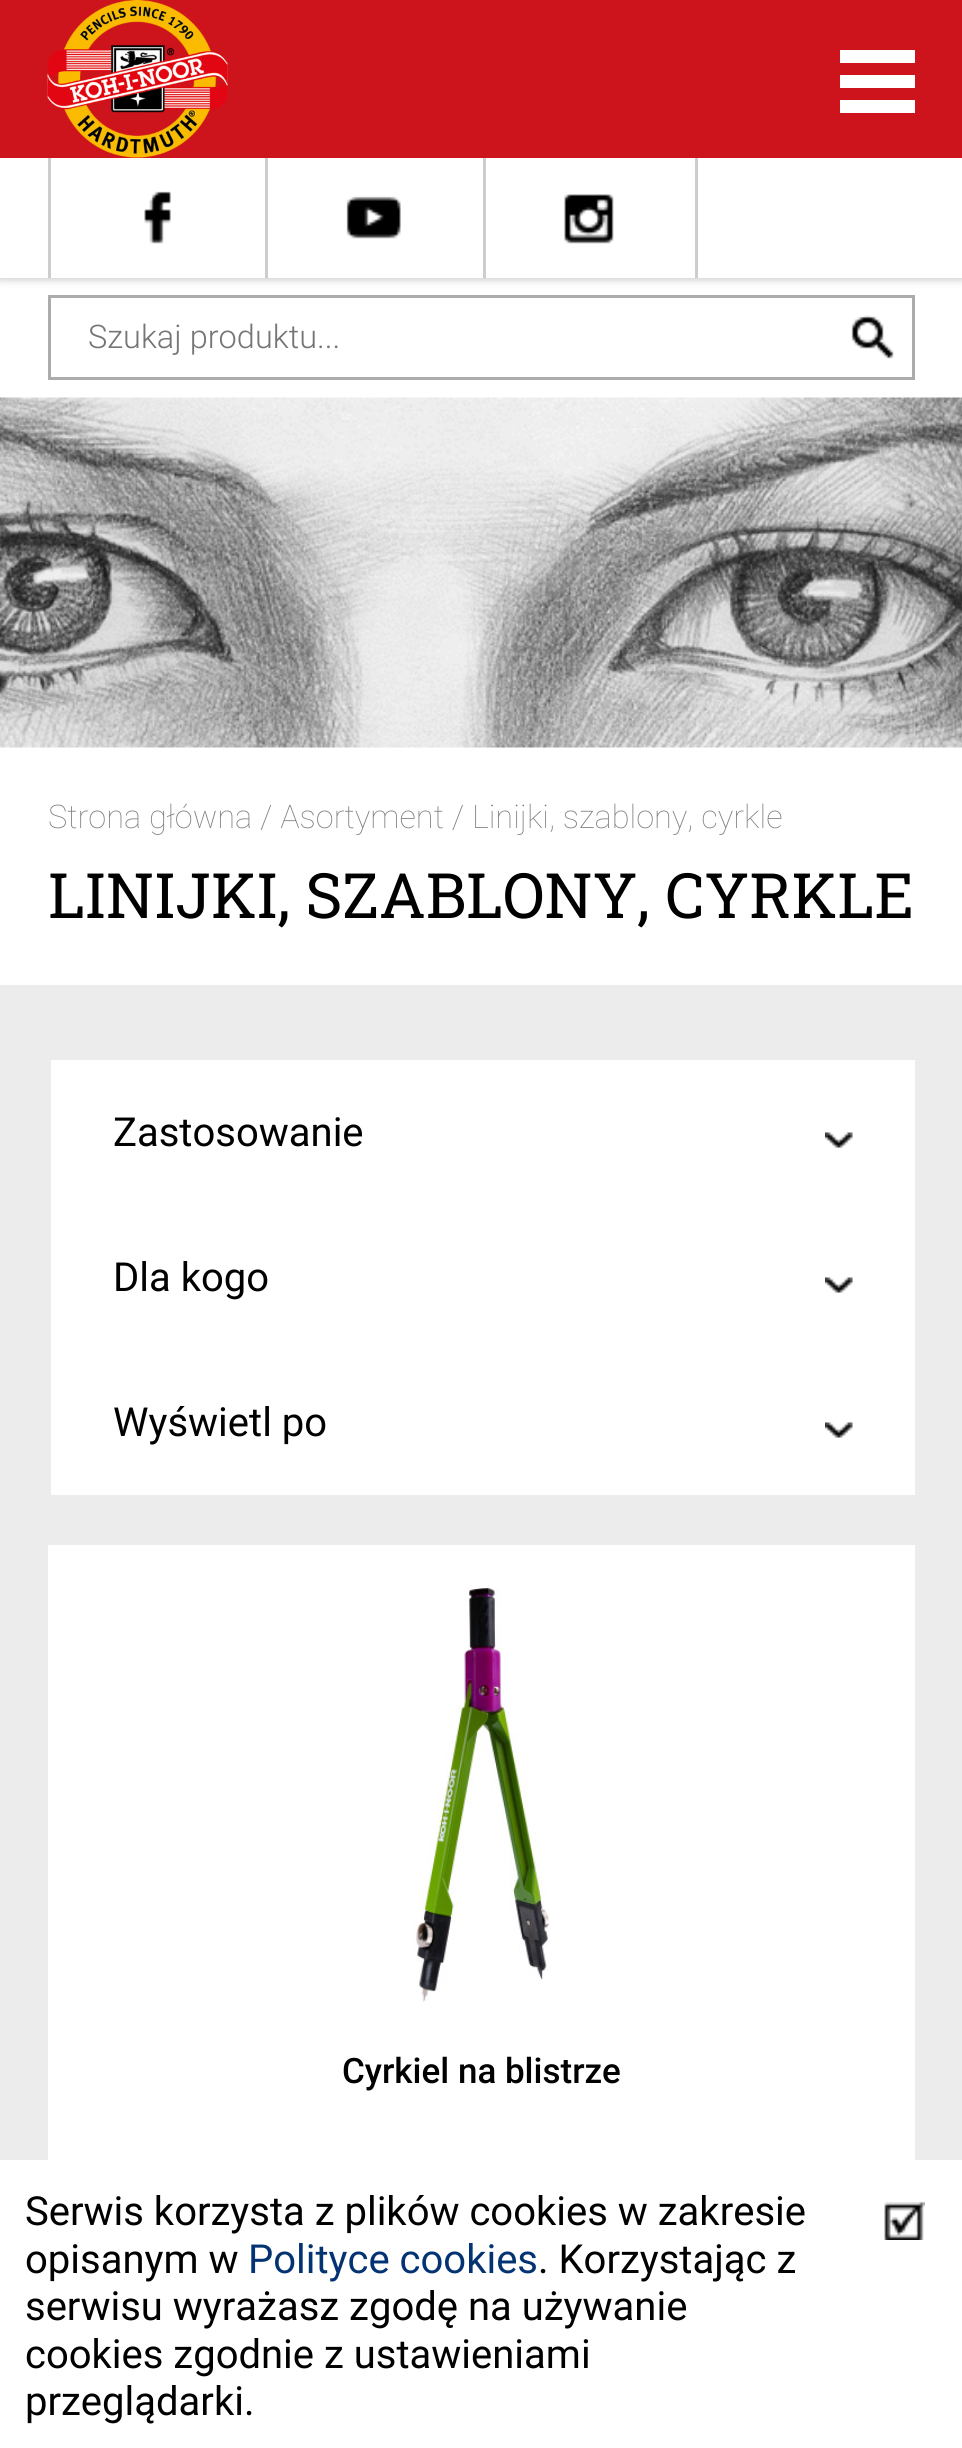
#include <cairo.h>
#include <math.h>
#include <stddef.h>


static void round_rect(cairo_t *cr, double x, double y, double w, double h, double r) {
    cairo_new_sub_path(cr);
    cairo_arc(cr, x + w - r, y + h - r, r, 0, M_PI / 2);
    cairo_arc(cr, x + r, y + h - r, r, M_PI / 2, M_PI);
    cairo_arc(cr, x + r, y + r, r, M_PI, 1.5 * M_PI);
    cairo_arc(cr, x + w - r, y + r, r, 1.5 * M_PI, 2 * M_PI);
    cairo_close_path(cr);
}

static void shadow(cairo_t *cr, double x, double y, double w, double h, double r, double blur, double alpha) {
    cairo_push_group_with_content(cr, CAIRO_CONTENT_ALPHA);
    cairo_set_operator(cr, CAIRO_OPERATOR_SOURCE);
    for (int i = 15; i >= -15 && fmin(w, h) + blur * i / 3 > 0; i -= 2) {
        double e = blur * i / 6;
        cairo_set_source_rgba(cr, 0, 0, 0, alpha * erfc((i - 1) / 8.5) / 2);
        round_rect(cr, x - e, y - e, w + 2 * e, h + 2 * e, fmax(0, fmin(r + e + blur * .6, fmin(w, h) / 2 + e)));
        cairo_fill(cr);
    }
    cairo_pattern_t *soft = cairo_pop_group(cr);
    cairo_mask(cr, soft);
    cairo_pattern_destroy(soft);
}

static void picture(cairo_t *cr, const char *path, double x, double y, double w, double h) {
    cairo_surface_t *image = cairo_image_surface_create_from_png(path);
    cairo_save(cr);
    cairo_set_source_surface(cr, image, x, y);
    cairo_rectangle(cr, x, y, w, h);
    cairo_fill(cr);
    cairo_restore(cr);
    cairo_surface_destroy(image);
}

int main(void) {
    cairo_surface_t *surface = cairo_image_surface_create(CAIRO_FORMAT_RGB24, 962, 2448);
    cairo_t *cr = cairo_create(surface);
    cairo_font_options_t *options = cairo_font_options_create();
    cairo_font_options_set_hint_metrics(options, CAIRO_HINT_METRICS_OFF);
    cairo_font_options_set_hint_style(options, CAIRO_HINT_STYLE_NONE);
    cairo_set_font_options(cr, options);
    cairo_set_miter_limit(cr, 4);
    cairo_set_source_rgb(cr, 1, 1, 1);
    cairo_paint(cr);
    cairo_set_source_rgb(cr, 0, 0, 0);
    shadow(cr, 0, 160, 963, 120, 0, 4, 0.2);
    cairo_set_source_rgb(cr, 0.804, 0.082, 0.11);
    cairo_rectangle(cr, 0, 0, 962, 158);
    cairo_fill(cr);
    picture(cr, "img1.png", 47, 0, 181, 158);
    cairo_set_source_rgb(cr, 1, 1, 1);
    cairo_rectangle(cr, 840, 50, 75, 13);
    cairo_fill(cr);
    cairo_rectangle(cr, 840, 75, 75, 13);
    cairo_fill(cr);
    cairo_rectangle(cr, 840, 100, 75, 13);
    cairo_fill(cr);
    cairo_rectangle(cr, 0, 158, 962, 120);
    cairo_fill(cr);
    cairo_set_source_rgb(cr, 0.804, 0.804, 0.804);
    cairo_rectangle(cr, 48, 158, 3, 120);
    cairo_fill(cr);
    picture(cr, "img2.png", 144, 191, 27, 53);
    cairo_rectangle(cr, 265, 158, 3, 120);
    cairo_fill(cr);
    picture(cr, "img3.png", 346, 196, 55, 43);
    cairo_rectangle(cr, 695, 158, 3, 120);
    cairo_fill(cr);
    cairo_rectangle(cr, 483, 158, 3, 120);
    cairo_fill(cr);
    picture(cr, "img4.png", 564, 194, 50, 50);
    cairo_rectangle(cr, 49.5, 296.5, 864, 82);
    cairo_set_source_rgb(cr, 0.675, 0.675, 0.675);
    cairo_set_line_width(cr, 3);
    cairo_stroke(cr);
    cairo_select_font_face(cr, "Roboto Light", CAIRO_FONT_SLANT_NORMAL, CAIRO_FONT_WEIGHT_NORMAL);
    cairo_set_font_size(cr, 32.5);
    cairo_set_source_rgb(cr, 0.459, 0.459, 0.459);
    cairo_move_to(cr, 88, 348);
    cairo_show_text(cr, "Szukaj produktu...");
    picture(cr, "img5.png", 851, 315, 43, 44);
    picture(cr, "img6.png", 0, 397, 962, 351);
    cairo_select_font_face(cr, "Roboto Thin", CAIRO_FONT_SLANT_NORMAL, CAIRO_FONT_WEIGHT_NORMAL);
    cairo_set_source_rgb(cr, 0.514, 0.502, 0.502);
    cairo_move_to(cr, 48, 828);
    cairo_show_text(cr, "Strona główna / Asortyment / Linijki, szablony, cyrkle");
    cairo_select_font_face(cr, "Roboto Slab", CAIRO_FONT_SLANT_NORMAL, CAIRO_FONT_WEIGHT_NORMAL);
    cairo_set_font_size(cr, 62.5);
    cairo_set_source_rgb(cr, 0, 0, 0);
    cairo_move_to(cr, 48, 918);
    cairo_show_text(cr, "LINIJKI, SZABLONY, CYRKLE");
    cairo_set_source_rgb(cr, 0.922, 0.922, 0.922);
    cairo_rectangle(cr, 0, 985, 962, 1175);
    cairo_fill(cr);
    cairo_set_source_rgb(cr, 1, 1, 1);
    cairo_rectangle(cr, 51, 1060, 864, 435);
    cairo_fill(cr);
    picture(cr, "img7.png", 825, 1132, 28, 16);
    cairo_select_font_face(cr, "Roboto", CAIRO_FONT_SLANT_NORMAL, CAIRO_FONT_WEIGHT_NORMAL);
    cairo_set_font_size(cr, 40);
    cairo_set_source_rgb(cr, 0, 0, 0);
    cairo_move_to(cr, 113, 1146);
    cairo_show_text(cr, "Zastosowanie");
    picture(cr, "img7.png", 825, 1277, 28, 16);
    cairo_move_to(cr, 113, 1291);
    cairo_show_text(cr, "Dla kogo");
    picture(cr, "img7.png", 825, 1422, 28, 16);
    cairo_move_to(cr, 113, 1436);
    cairo_show_text(cr, "Wyświetl po");
    cairo_set_source_rgb(cr, 1, 1, 1);
    cairo_rectangle(cr, 48, 1545, 867, 615);
    cairo_fill(cr);
    picture(cr, "img8.png", 414, 1588, 136, 414);
    cairo_select_font_face(cr, "Roboto Medium", CAIRO_FONT_SLANT_NORMAL, CAIRO_FONT_WEIGHT_NORMAL);
    cairo_set_font_size(cr, 35);
    cairo_set_source_rgb(cr, 0, 0, 0);
    cairo_move_to(cr, 342, 2083);
    cairo_show_text(cr, "Cyrkiel na blistrze");
    cairo_select_font_face(cr, "Roboto", CAIRO_FONT_SLANT_NORMAL, CAIRO_FONT_WEIGHT_NORMAL);
    cairo_set_font_size(cr, 40);
    cairo_move_to(cr, 25, 2225);
    cairo_show_text(cr, "Serwis korzysta z plików cookies w zakresie");
    cairo_move_to(cr, 25, 2273);
    cairo_show_text(cr, "opisanym w");
    cairo_set_source_rgb(cr, 0.012, 0.2, 0.451);
    cairo_move_to(cr, 248, 2273);
    cairo_show_text(cr, "Polityce cookies");
    cairo_set_source_rgb(cr, 0, 0, 0);
    cairo_move_to(cr, 538, 2273);
    cairo_show_text(cr, ". Korzystając z");
    cairo_move_to(cr, 25, 2320);
    cairo_show_text(cr, "serwisu wyrażasz zgodę na używanie");
    cairo_move_to(cr, 25, 2368);
    cairo_show_text(cr, "cookies zgodnie z ustawieniami");
    cairo_move_to(cr, 25, 2415);
    cairo_show_text(cr, "przeglądarki.");
    picture(cr, "img9.png", 884, 2201, 41, 39);
    cairo_surface_write_to_png(surface, "page.png");
    cairo_font_options_destroy(options);
    cairo_destroy(cr);
    cairo_surface_destroy(surface);
    return 0;
}
